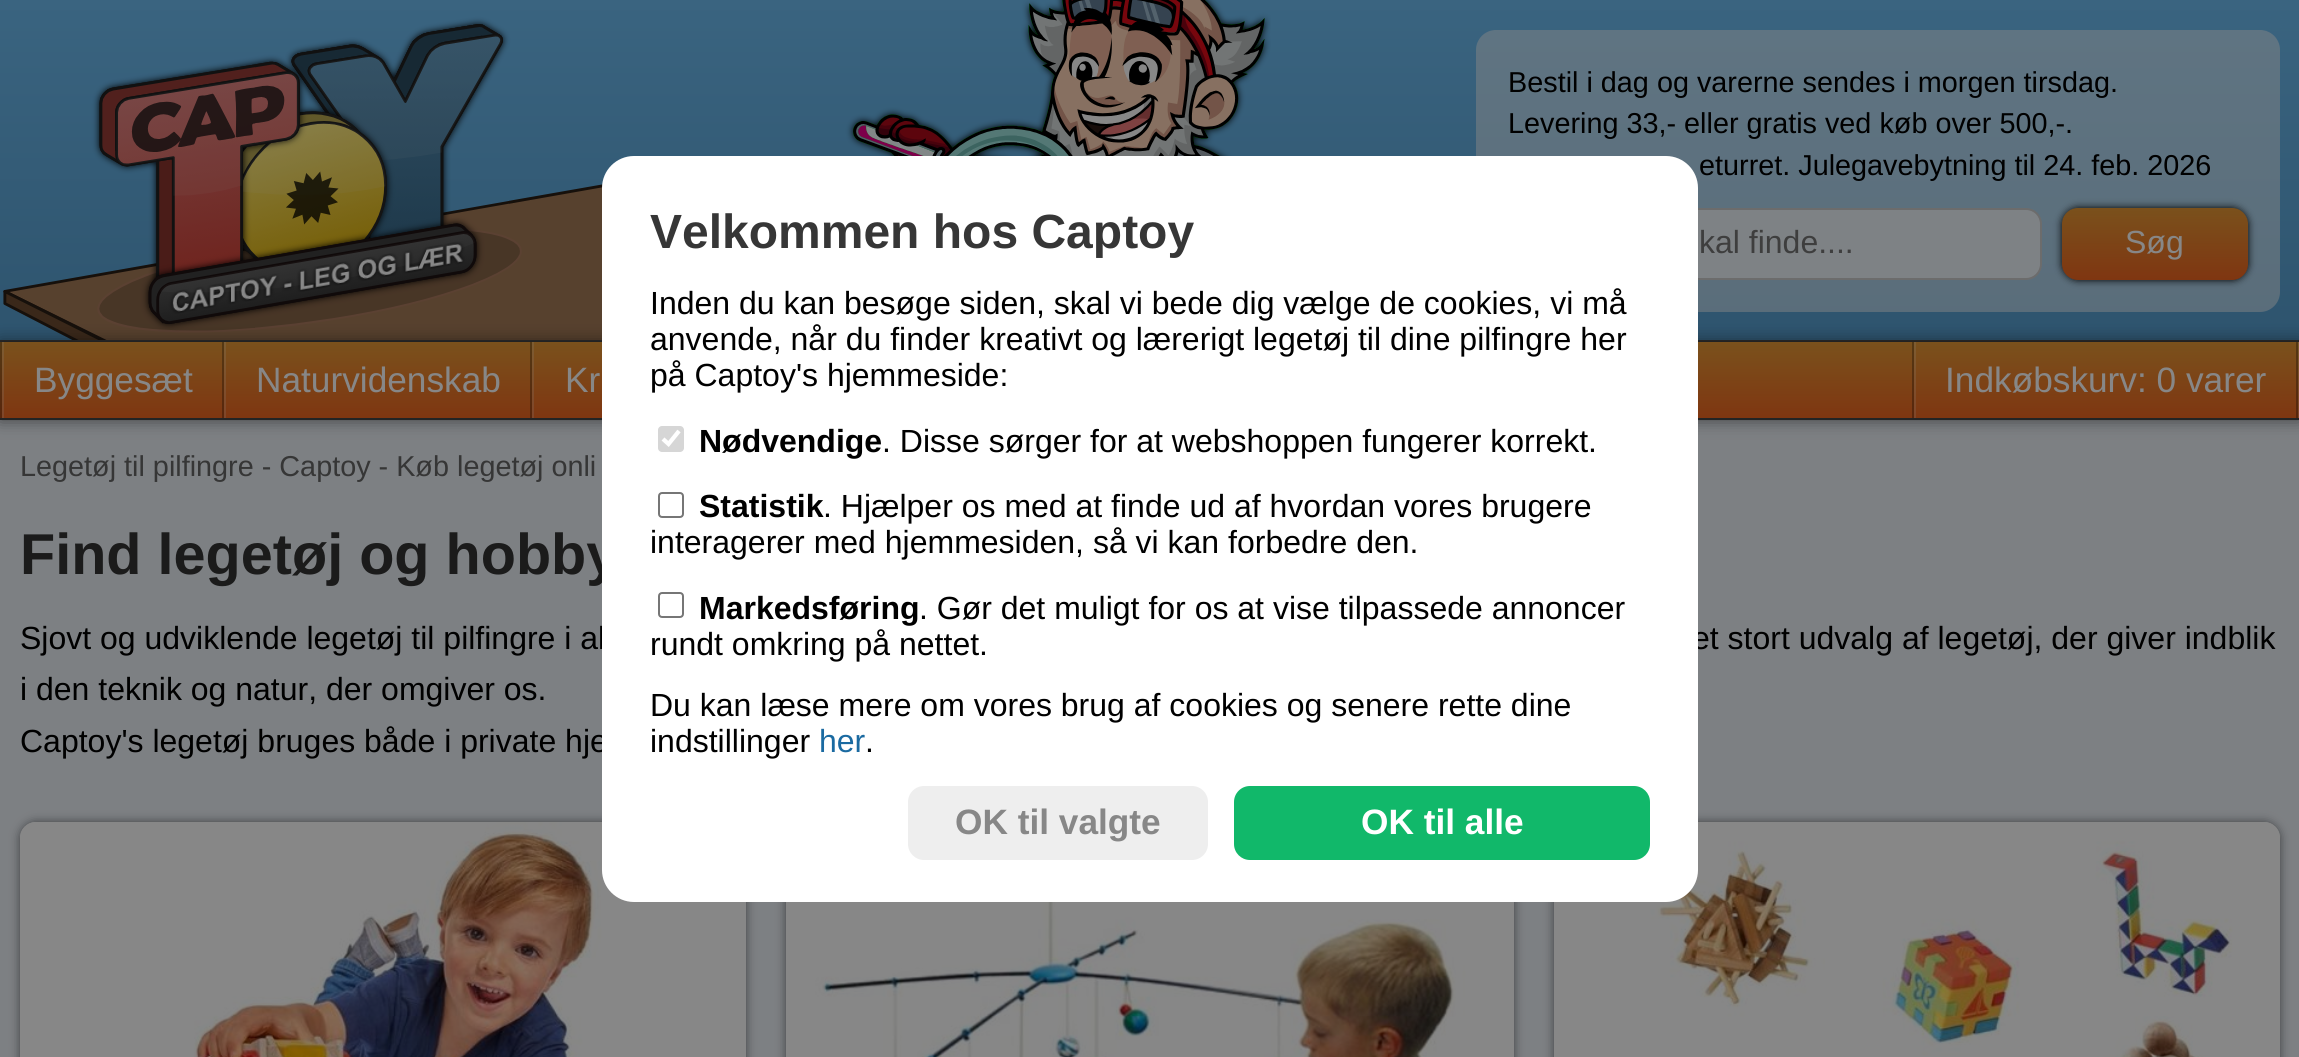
#include <cairo.h>
#include <math.h>
#include <stddef.h>


static void round_rect(cairo_t *cr, double x, double y, double w, double h, double r) {
    cairo_new_sub_path(cr);
    cairo_arc(cr, x + w - r, y + h - r, r, 0, M_PI / 2);
    cairo_arc(cr, x + r, y + h - r, r, M_PI / 2, M_PI);
    cairo_arc(cr, x + r, y + r, r, M_PI, 1.5 * M_PI);
    cairo_arc(cr, x + w - r, y + r, r, 1.5 * M_PI, 2 * M_PI);
    cairo_close_path(cr);
}

static void shadow(cairo_t *cr, double x, double y, double w, double h, double r, double blur, double alpha) {
    cairo_push_group_with_content(cr, CAIRO_CONTENT_ALPHA);
    cairo_set_operator(cr, CAIRO_OPERATOR_SOURCE);
    for (int i = 15; i >= -15 && fmin(w, h) + blur * i / 3 > 0; i -= 2) {
        double e = blur * i / 6;
        cairo_set_source_rgba(cr, 0, 0, 0, alpha * erfc((i - 1) / 8.5) / 2);
        round_rect(cr, x - e, y - e, w + 2 * e, h + 2 * e, fmax(0, fmin(r + e + blur * .6, fmin(w, h) / 2 + e)));
        cairo_fill(cr);
    }
    cairo_pattern_t *soft = cairo_pop_group(cr);
    cairo_mask(cr, soft);
    cairo_pattern_destroy(soft);
}

static void picture(cairo_t *cr, const char *path, double x, double y, double w, double h) {
    cairo_surface_t *image = cairo_image_surface_create_from_png(path);
    cairo_save(cr);
    cairo_set_source_surface(cr, image, x, y);
    cairo_rectangle(cr, x, y, w, h);
    cairo_fill(cr);
    cairo_restore(cr);
    cairo_surface_destroy(image);
}

int main(void) {
    cairo_surface_t *surface = cairo_image_surface_create(CAIRO_FORMAT_RGB24, 2299, 1057);
    cairo_t *cr = cairo_create(surface);
    cairo_font_options_t *options = cairo_font_options_create();
    cairo_font_options_set_hint_metrics(options, CAIRO_HINT_METRICS_OFF);
    cairo_font_options_set_hint_style(options, CAIRO_HINT_STYLE_NONE);
    cairo_set_font_options(cr, options);
    cairo_set_miter_limit(cr, 4);
    cairo_pattern_t *gradient;
    cairo_set_source_rgb(cr, 1, 1, 1);
    cairo_paint(cr);
    gradient = cairo_pattern_create_linear(1150, 340, 1150, 0);
    cairo_pattern_add_color_stop_rgba(gradient, 0, 0.18, 0.329, 0.431, 1);
    cairo_pattern_add_color_stop_rgba(gradient, 1, 0.227, 0.392, 0.502, 1);
    cairo_set_source(cr, gradient);
    cairo_pattern_destroy(gradient);
    cairo_rectangle(cr, 0, 0, 2299, 340);
    cairo_fill(cr);
    cairo_set_source_rgb(cr, 0.176, 0.176, 0.176);
    cairo_rectangle(cr, 0, 340, 2299, 2);
    cairo_fill(cr);
    picture(cr, "img1.png", 3, 0, 1268, 340);
    cairo_set_source_rgba(cr, 0.529, 0.529, 0.529, 0.5);
    round_rect(cr, 1476, 30, 804, 282, 20);
    cairo_fill(cr);
    cairo_select_font_face(cr, "Liberation Sans", CAIRO_FONT_SLANT_NORMAL, CAIRO_FONT_WEIGHT_NORMAL);
    cairo_set_font_size(cr, 28.8);
    cairo_set_source_rgb(cr, 0, 0, 0);
    cairo_move_to(cr, 1508, 92);
    cairo_show_text(cr, "Bestil i dag og varerne sendes i morgen tirsdag.");
    cairo_move_to(cr, 1508, 133);
    cairo_show_text(cr, "Levering 33,- eller gratis ved køb over 500,-.");
    cairo_move_to(cr, 1699, 175);
    cairo_show_text(cr, "eturret. Julegavebytning til 24. feb. 2026");
    cairo_set_source_rgba(cr, 0.529, 0.529, 0.529, 0.8);
    round_rect(cr, 1509, 209, 532, 70, 15);
    cairo_fill_preserve(cr);
    cairo_set_source_rgb(cr, 0.424, 0.424, 0.424);
    cairo_stroke(cr);
    cairo_set_font_size(cr, 32);
    cairo_set_source_rgb(cr, 0.243, 0.243, 0.243);
    cairo_move_to(cr, 1699, 253);
    cairo_show_text(cr, "kal finde....");
    cairo_set_source_rgb(cr, 0, 0, 0);
    shadow(cr, 2062, 208, 186, 72, 16, 4, 1);
    gradient = cairo_pattern_create_linear(2155, 279, 2155, 207);
    cairo_pattern_add_color_stop_rgba(gradient, 0, 0.498, 0.212, 0.067, 1);
    cairo_pattern_add_color_stop_rgba(gradient, 1, 0.478, 0.318, 0.11, 1);
    cairo_set_source(cr, gradient);
    cairo_pattern_destroy(gradient);
    round_rect(cr, 2062, 208, 186, 72, 16);
    cairo_fill(cr);
    cairo_set_source_rgb(cr, 0.529, 0.529, 0.529);
    cairo_move_to(cr, 2125, 253);
    cairo_show_text(cr, "Søg");
    cairo_set_source_rgb(cr, 0.49, 0.502, 0.514);
    cairo_rectangle(cr, 0, 420, 2299, 637);
    cairo_fill(cr);
    cairo_set_source_rgb(cr, 0, 0, 0);
    shadow(cr, 0, 342, 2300, 78, 0, 8, 0.5);
    gradient = cairo_pattern_create_linear(1150, 418, 1150, 342);
    cairo_pattern_add_color_stop_rgba(gradient, 0, 0.498, 0.212, 0.067, 1);
    cairo_pattern_add_color_stop_rgba(gradient, 1, 0.478, 0.318, 0.11, 1);
    cairo_set_source(cr, gradient);
    cairo_pattern_destroy(gradient);
    cairo_rectangle(cr, 4, 342, 2292, 76);
    cairo_fill(cr);
    cairo_set_source_rgb(cr, 0.141, 0.141, 0.141);
    cairo_rectangle(cr, 0, 418, 2299, 2);
    cairo_fill(cr);
    cairo_select_font_face(cr, "Liberation Sans", CAIRO_FONT_SLANT_NORMAL, CAIRO_FONT_WEIGHT_BOLD);
    cairo_set_font_size(cr, 57.6);
    cairo_set_source_rgb(cr, 0.106, 0.106, 0.106);
    cairo_move_to(cr, 20, 574);
    cairo_show_text(cr, "Find legetøj og hobby");
    cairo_select_font_face(cr, "Liberation Sans", CAIRO_FONT_SLANT_NORMAL, CAIRO_FONT_WEIGHT_NORMAL);
    cairo_set_font_size(cr, 32);
    cairo_set_source_rgb(cr, 0, 0, 0);
    cairo_move_to(cr, 20, 649);
    cairo_show_text(cr, "Sjovt og udviklende legetøj til pilfingre i al");
    cairo_move_to(cr, 1692, 649);
    cairo_show_text(cr, "et stort udvalg af legetøj, der giver indblik");
    cairo_move_to(cr, 20, 752);
    cairo_show_text(cr, "Captoy's legetøj bruges både i private hje");
    cairo_set_source_rgb(cr, 0, 0, 0);
    shadow(cr, 20, 822, 726, 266, 16, 5, 0.5);
    cairo_set_source_rgb(cr, 0.529, 0.529, 0.529);
    cairo_new_path(cr);
    cairo_move_to(cr, 36, 822);
    cairo_line_to(cr, 730, 822);
    cairo_curve_to(cr, 739, 822, 746, 829, 746, 838);
    cairo_line_to(cr, 746, 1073);
    cairo_line_to(cr, 20, 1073);
    cairo_line_to(cr, 20, 838);
    cairo_curve_to(cr, 20, 829, 27, 822, 36, 822);
    cairo_close_path(cr);
    cairo_fill(cr);
    picture(cr, "img2.png", 20, 822, 726, 235);
    cairo_set_source_rgb(cr, 0, 0, 0);
    shadow(cr, 786, 822, 728, 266, 16, 5, 0.5);
    shadow(cr, 1554, 822, 726, 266, 16, 5, 0.5);
    cairo_set_source_rgb(cr, 0.529, 0.529, 0.529);
    cairo_new_path(cr);
    cairo_move_to(cr, 1570, 822);
    cairo_line_to(cr, 2264, 822);
    cairo_curve_to(cr, 2273, 822, 2280, 829, 2280, 838);
    cairo_line_to(cr, 2280, 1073);
    cairo_line_to(cr, 1554, 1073);
    cairo_line_to(cr, 1554, 838);
    cairo_curve_to(cr, 1554, 829, 1561, 822, 1570, 822);
    cairo_close_path(cr);
    cairo_fill(cr);
    picture(cr, "img4.png", 1554, 822, 726, 235);
    cairo_set_source_rgb(cr, 1, 1, 1);
    round_rect(cr, 602, 156, 1096, 746, 32);
    cairo_fill(cr);
    cairo_select_font_face(cr, "Liberation Sans", CAIRO_FONT_SLANT_NORMAL, CAIRO_FONT_WEIGHT_BOLD);
    cairo_set_font_size(cr, 48);
    cairo_set_source_rgb(cr, 0.212, 0.212, 0.212);
    cairo_move_to(cr, 650, 248);
    cairo_show_text(cr, "Velkommen hos Captoy");
    cairo_select_font_face(cr, "Liberation Sans", CAIRO_FONT_SLANT_NORMAL, CAIRO_FONT_WEIGHT_NORMAL);
    cairo_set_font_size(cr, 32);
    cairo_set_source_rgb(cr, 0, 0, 0);
    cairo_move_to(cr, 650, 314);
    cairo_show_text(cr, "Inden du kan besøge siden, skal vi bede dig vælge de cookies, vi må");
    cairo_move_to(cr, 650, 350);
    cairo_show_text(cr, "anvende, når du finder kreativt og lærerigt legetøj til dine pilfingre her");
    cairo_move_to(cr, 650, 386);
    cairo_show_text(cr, "på Captoy's hjemmeside:");
    cairo_set_source_rgb(cr, 0.839, 0.839, 0.839);
    round_rect(cr, 658, 426, 26, 26, 4);
    cairo_fill(cr);
    cairo_new_path(cr);
    cairo_move_to(cr, 663, 439);
    cairo_line_to(cr, 668.5, 444);
    cairo_line_to(cr, 679, 431);
    cairo_set_source_rgb(cr, 1, 1, 1);
    cairo_set_line_width(cr, 4.2);
    cairo_stroke(cr);
    cairo_select_font_face(cr, "Liberation Sans", CAIRO_FONT_SLANT_NORMAL, CAIRO_FONT_WEIGHT_BOLD);
    cairo_set_source_rgb(cr, 0, 0, 0);
    cairo_move_to(cr, 699, 452);
    cairo_show_text(cr, "Nødvendige");
    cairo_select_font_face(cr, "Liberation Sans", CAIRO_FONT_SLANT_NORMAL, CAIRO_FONT_WEIGHT_NORMAL);
    cairo_move_to(cr, 882, 452);
    cairo_show_text(cr, ". Disse sørger for at webshoppen fungerer korrekt.");
    round_rect(cr, 659, 493, 24, 24, 3);
    cairo_set_source_rgb(cr, 0.463, 0.463, 0.463);
    cairo_set_line_width(cr, 2);
    cairo_stroke(cr);
    cairo_select_font_face(cr, "Liberation Sans", CAIRO_FONT_SLANT_NORMAL, CAIRO_FONT_WEIGHT_BOLD);
    cairo_set_source_rgb(cr, 0, 0, 0);
    cairo_move_to(cr, 699, 517);
    cairo_show_text(cr, "Statistik");
    cairo_select_font_face(cr, "Liberation Sans", CAIRO_FONT_SLANT_NORMAL, CAIRO_FONT_WEIGHT_NORMAL);
    cairo_move_to(cr, 823, 517);
    cairo_show_text(cr, ". Hjælper os med at finde ud af hvordan vores brugere");
    cairo_move_to(cr, 650, 553);
    cairo_show_text(cr, "interagerer med hjemmesiden, så vi kan forbedre den.");
    round_rect(cr, 659, 593, 24, 24, 3);
    cairo_set_source_rgb(cr, 0.463, 0.463, 0.463);
    cairo_stroke(cr);
    cairo_select_font_face(cr, "Liberation Sans", CAIRO_FONT_SLANT_NORMAL, CAIRO_FONT_WEIGHT_BOLD);
    cairo_set_source_rgb(cr, 0, 0, 0);
    cairo_move_to(cr, 699, 619);
    cairo_show_text(cr, "Markedsføring");
    cairo_select_font_face(cr, "Liberation Sans", CAIRO_FONT_SLANT_NORMAL, CAIRO_FONT_WEIGHT_NORMAL);
    cairo_move_to(cr, 919, 619);
    cairo_show_text(cr, ". Gør det muligt for os at vise tilpassede annoncer");
    cairo_move_to(cr, 650, 655);
    cairo_show_text(cr, "rundt omkring på nettet.");
    cairo_move_to(cr, 650, 716);
    cairo_show_text(cr, "Du kan læse mere om vores brug af cookies og senere rette dine");
    cairo_move_to(cr, 650, 752);
    cairo_show_text(cr, "indstillinger");
    cairo_set_source_rgb(cr, 0.102, 0.416, 0.631);
    cairo_move_to(cr, 819, 752);
    cairo_show_text(cr, "her");
    cairo_set_source_rgb(cr, 0, 0, 0);
    cairo_move_to(cr, 865, 752);
    cairo_show_text(cr, ".");
    cairo_set_source_rgb(cr, 0.933, 0.933, 0.933);
    round_rect(cr, 908, 786, 300, 74, 16);
    cairo_fill(cr);
    cairo_select_font_face(cr, "Liberation Sans", CAIRO_FONT_SLANT_NORMAL, CAIRO_FONT_WEIGHT_BOLD);
    cairo_set_font_size(cr, 35.25);
    cairo_set_source_rgb(cr, 0.529, 0.529, 0.529);
    cairo_move_to(cr, 955, 834);
    cairo_show_text(cr, "OK til valgte");
    cairo_set_source_rgb(cr, 0.067, 0.722, 0.416);
    round_rect(cr, 1234, 786, 416, 74, 16);
    cairo_fill(cr);
    cairo_set_source_rgb(cr, 1, 1, 1);
    cairo_move_to(cr, 1361, 834);
    cairo_show_text(cr, "OK til alle");
    gradient = cairo_pattern_create_linear(1150, 418, 1150, 342);
    cairo_pattern_add_color_stop_rgba(gradient, 0, 0.349, 0.149, 0.047, 1);
    cairo_pattern_add_color_stop_rgba(gradient, 1, 0.333, 0.224, 0.078, 1);
    cairo_set_source(cr, gradient);
    cairo_pattern_destroy(gradient);
    cairo_rectangle(cr, 2296, 342, 2, 76);
    cairo_fill(cr);
    gradient = cairo_pattern_create_linear(1150, 418, 1150, 342);
    cairo_pattern_add_color_stop_rgba(gradient, 0, 0.502, 0.275, 0.161, 1);
    cairo_pattern_add_color_stop_rgba(gradient, 1, 0.49, 0.361, 0.192, 1);
    cairo_set_source(cr, gradient);
    cairo_pattern_destroy(gradient);
    cairo_rectangle(cr, 2298, 342, 1, 76);
    cairo_fill(cr);
    gradient = cairo_pattern_create_linear(1150, 418, 1150, 342);
    cairo_pattern_add_color_stop_rgba(gradient, 0, 0.349, 0.149, 0.047, 1);
    cairo_pattern_add_color_stop_rgba(gradient, 1, 0.333, 0.224, 0.078, 1);
    cairo_set_source(cr, gradient);
    cairo_pattern_destroy(gradient);
    cairo_rectangle(cr, 1912, 342, 2, 76);
    cairo_fill(cr);
    gradient = cairo_pattern_create_linear(1150, 418, 1150, 342);
    cairo_pattern_add_color_stop_rgba(gradient, 0, 0.502, 0.275, 0.161, 1);
    cairo_pattern_add_color_stop_rgba(gradient, 1, 0.49, 0.361, 0.192, 1);
    cairo_set_source(cr, gradient);
    cairo_pattern_destroy(gradient);
    cairo_rectangle(cr, 1914, 342, 2, 76);
    cairo_fill(cr);
    gradient = cairo_pattern_create_linear(1150, 418, 1150, 342);
    cairo_pattern_add_color_stop_rgba(gradient, 0, 0.349, 0.149, 0.047, 1);
    cairo_pattern_add_color_stop_rgba(gradient, 1, 0.333, 0.224, 0.078, 1);
    cairo_set_source(cr, gradient);
    cairo_pattern_destroy(gradient);
    cairo_rectangle(cr, 530, 342, 2, 76);
    cairo_fill(cr);
    gradient = cairo_pattern_create_linear(1150, 418, 1150, 342);
    cairo_pattern_add_color_stop_rgba(gradient, 0, 0.502, 0.275, 0.161, 1);
    cairo_pattern_add_color_stop_rgba(gradient, 1, 0.49, 0.361, 0.192, 1);
    cairo_set_source(cr, gradient);
    cairo_pattern_destroy(gradient);
    cairo_rectangle(cr, 532, 342, 2, 76);
    cairo_fill(cr);
    gradient = cairo_pattern_create_linear(1150, 418, 1150, 342);
    cairo_pattern_add_color_stop_rgba(gradient, 0, 0.349, 0.149, 0.047, 1);
    cairo_pattern_add_color_stop_rgba(gradient, 1, 0.333, 0.224, 0.078, 1);
    cairo_set_source(cr, gradient);
    cairo_pattern_destroy(gradient);
    cairo_rectangle(cr, 222, 342, 2, 76);
    cairo_fill(cr);
    gradient = cairo_pattern_create_linear(1150, 418, 1150, 342);
    cairo_pattern_add_color_stop_rgba(gradient, 0, 0.502, 0.275, 0.161, 1);
    cairo_pattern_add_color_stop_rgba(gradient, 1, 0.49, 0.361, 0.192, 1);
    cairo_set_source(cr, gradient);
    cairo_pattern_destroy(gradient);
    cairo_rectangle(cr, 224, 342, 2, 76);
    cairo_fill(cr);
    gradient = cairo_pattern_create_linear(1150, 418, 1150, 342);
    cairo_pattern_add_color_stop_rgba(gradient, 0, 0.349, 0.149, 0.047, 1);
    cairo_pattern_add_color_stop_rgba(gradient, 1, 0.333, 0.224, 0.078, 1);
    cairo_set_source(cr, gradient);
    cairo_pattern_destroy(gradient);
    cairo_rectangle(cr, 0, 342, 2, 76);
    cairo_fill(cr);
    gradient = cairo_pattern_create_linear(1150, 418, 1150, 342);
    cairo_pattern_add_color_stop_rgba(gradient, 0, 0.502, 0.275, 0.161, 1);
    cairo_pattern_add_color_stop_rgba(gradient, 1, 0.49, 0.361, 0.192, 1);
    cairo_set_source(cr, gradient);
    cairo_pattern_destroy(gradient);
    cairo_rectangle(cr, 2, 342, 2, 76);
    cairo_fill(cr);
    cairo_select_font_face(cr, "Liberation Sans", CAIRO_FONT_SLANT_NORMAL, CAIRO_FONT_WEIGHT_NORMAL);
    cairo_set_source_rgb(cr, 0.529, 0.529, 0.529);
    cairo_move_to(cr, 34, 392);
    cairo_show_text(cr, "Byggesæt");
    cairo_move_to(cr, 256, 392);
    cairo_show_text(cr, "Naturvidenskab");
    cairo_move_to(cr, 565, 392);
    cairo_show_text(cr, "Kr");
    cairo_move_to(cr, 1945, 392);
    cairo_show_text(cr, "Indkøbskurv: 0 varer");
    cairo_set_font_size(cr, 28.8);
    cairo_set_source_rgb(cr, 0.212, 0.212, 0.212);
    cairo_move_to(cr, 20, 476);
    cairo_show_text(cr, "Legetøj til pilfingre - Captoy - Køb legetøj onli");
    cairo_set_font_size(cr, 32);
    cairo_set_source_rgb(cr, 0, 0, 0);
    cairo_move_to(cr, 20, 700);
    cairo_show_text(cr, "i den teknik og natur, der omgiver os.");
    picture(cr, "img3.png", 786, 902, 728, 155);
    cairo_surface_write_to_png(surface, "page.png");
    cairo_font_options_destroy(options);
    cairo_destroy(cr);
    cairo_surface_destroy(surface);
    return 0;
}
